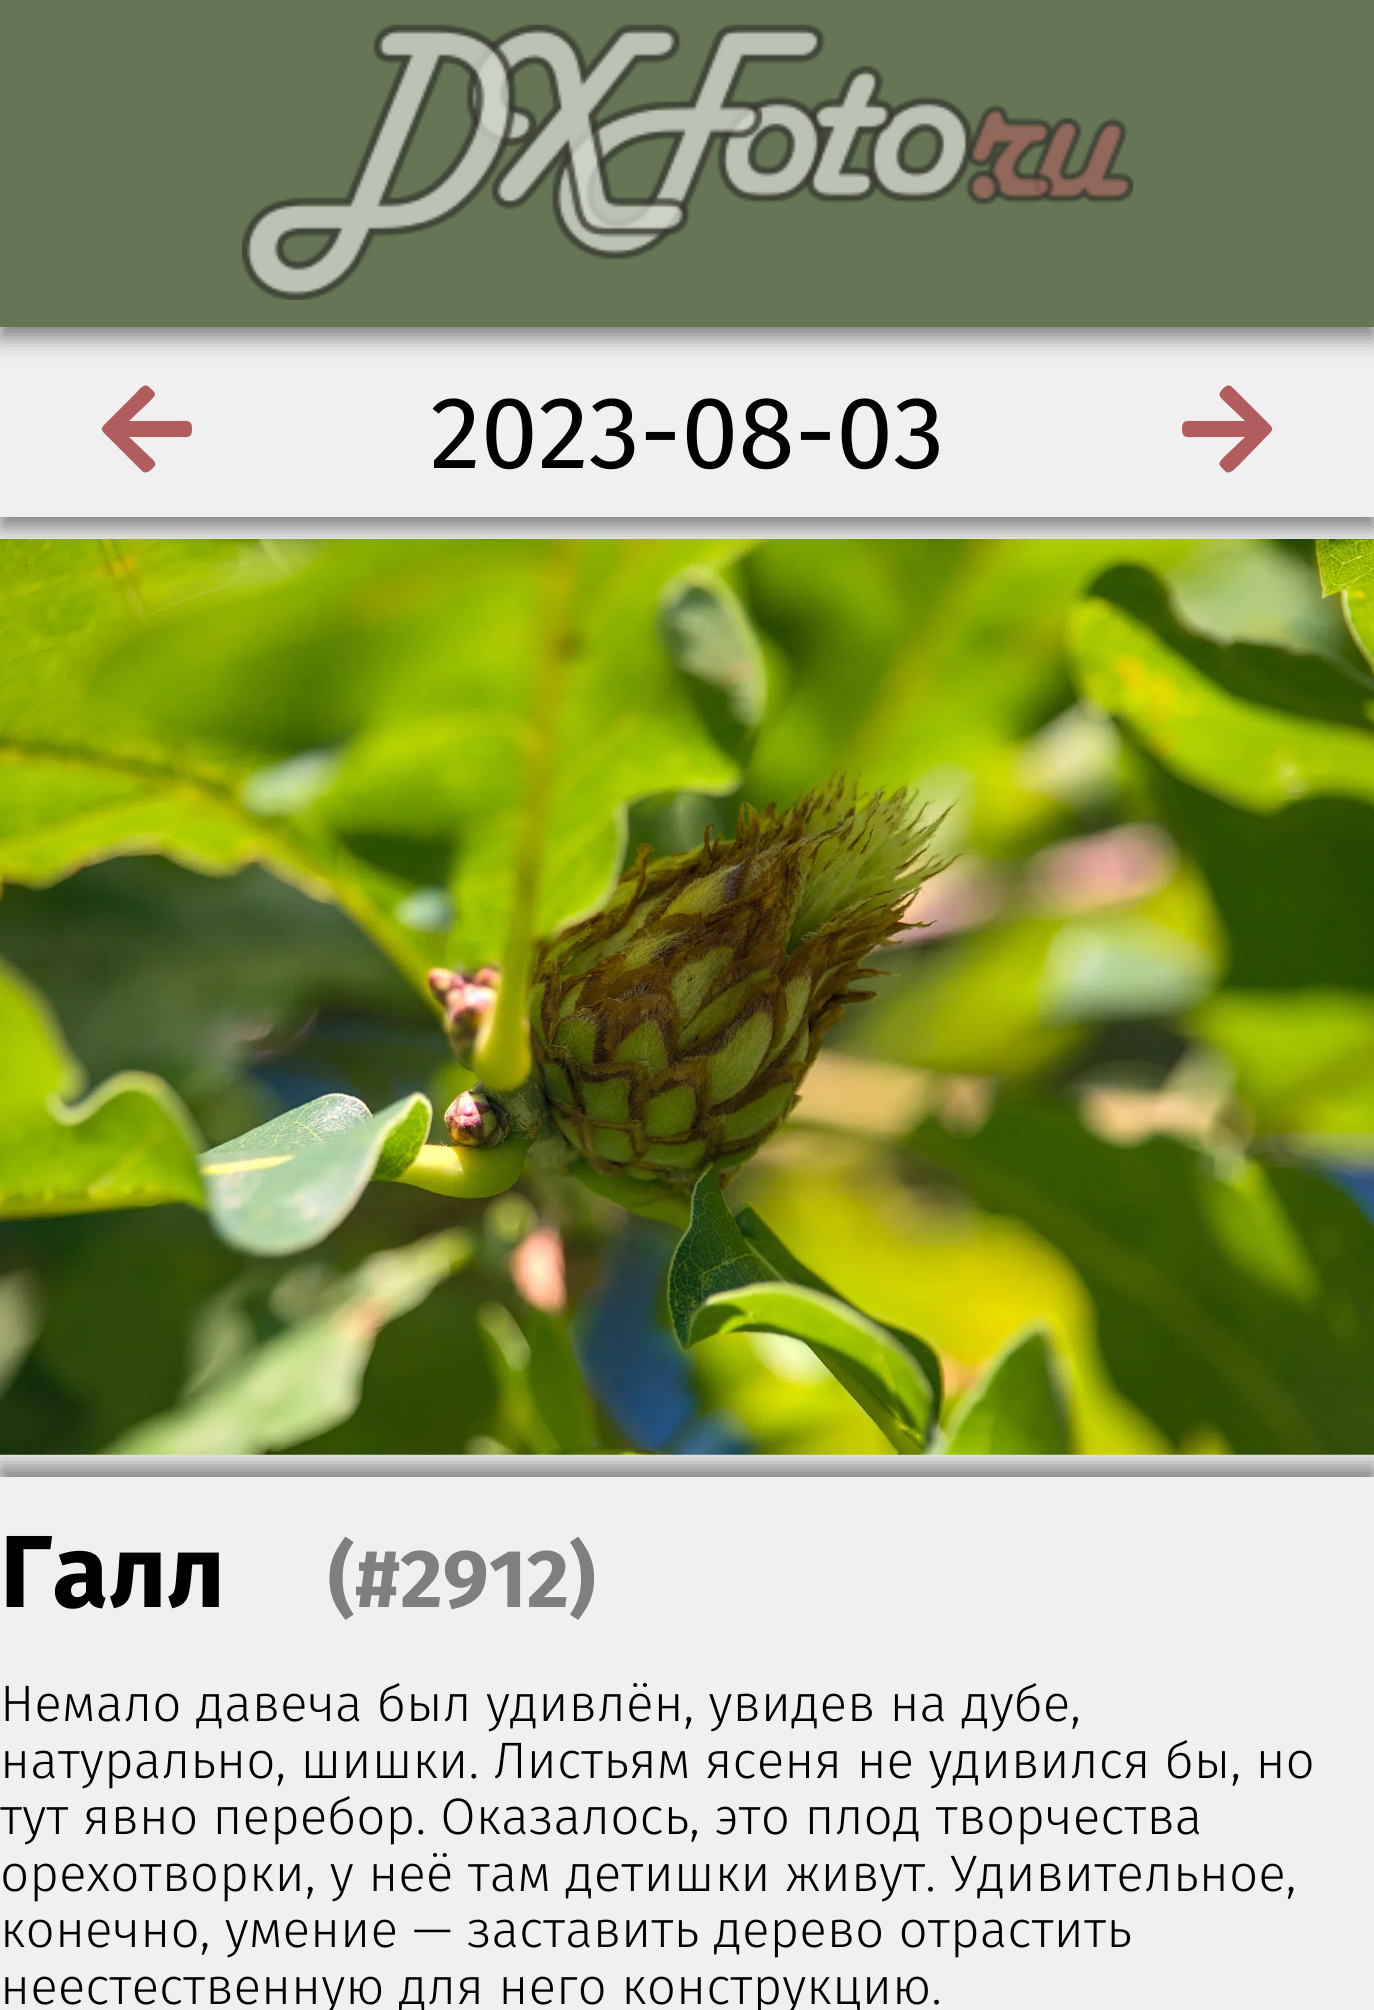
#include <cairo.h>
#include <math.h>
#include <stddef.h>


static void round_rect(cairo_t *cr, double x, double y, double w, double h, double r) {
    cairo_new_sub_path(cr);
    cairo_arc(cr, x + w - r, y + h - r, r, 0, M_PI / 2);
    cairo_arc(cr, x + r, y + h - r, r, M_PI / 2, M_PI);
    cairo_arc(cr, x + r, y + r, r, M_PI, 1.5 * M_PI);
    cairo_arc(cr, x + w - r, y + r, r, 1.5 * M_PI, 2 * M_PI);
    cairo_close_path(cr);
}

static void shadow(cairo_t *cr, double x, double y, double w, double h, double r, double blur, double alpha) {
    cairo_push_group_with_content(cr, CAIRO_CONTENT_ALPHA);
    cairo_set_operator(cr, CAIRO_OPERATOR_SOURCE);
    for (int i = 15; i >= -15 && fmin(w, h) + blur * i / 3 > 0; i -= 2) {
        double e = blur * i / 6;
        cairo_set_source_rgba(cr, 0, 0, 0, alpha * erfc((i - 1) / 8.5) / 2);
        round_rect(cr, x - e, y - e, w + 2 * e, h + 2 * e, fmax(0, fmin(r + e + blur * .6, fmin(w, h) / 2 + e)));
        cairo_fill(cr);
    }
    cairo_pattern_t *soft = cairo_pop_group(cr);
    cairo_mask(cr, soft);
    cairo_pattern_destroy(soft);
}

static void picture(cairo_t *cr, const char *path, double x, double y, double w, double h) {
    cairo_surface_t *image = cairo_image_surface_create_from_png(path);
    cairo_save(cr);
    cairo_set_source_surface(cr, image, x, y);
    cairo_rectangle(cr, x, y, w, h);
    cairo_fill(cr);
    cairo_restore(cr);
    cairo_surface_destroy(image);
}

int main(void) {
    cairo_surface_t *surface = cairo_image_surface_create(CAIRO_FORMAT_RGB24, 1374, 2010);
    cairo_t *cr = cairo_create(surface);
    cairo_font_options_t *options = cairo_font_options_create();
    cairo_font_options_set_hint_metrics(options, CAIRO_HINT_METRICS_OFF);
    cairo_font_options_set_hint_style(options, CAIRO_HINT_STYLE_NONE);
    cairo_set_font_options(cr, options);
    cairo_set_miter_limit(cr, 4);
    cairo_set_source_rgb(cr, 0.941, 0.941, 0.941);
    cairo_paint(cr);
    cairo_set_source_rgb(cr, 0.498, 0.498, 0.498);
    shadow(cr, 0, 11, 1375, 327, 0, 11, 1);
    cairo_save(cr);
    cairo_set_fill_rule(cr, CAIRO_FILL_RULE_EVEN_ODD);
    cairo_new_path(cr);
    cairo_move_to(cr, 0, 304);
    cairo_line_to(cr, 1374, 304);
    cairo_line_to(cr, 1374, 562);
    cairo_line_to(cr, 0, 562);
    cairo_close_path(cr);
    cairo_move_to(cr, 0, 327);
    cairo_line_to(cr, 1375, 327);
    cairo_line_to(cr, 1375, 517);
    cairo_line_to(cr, 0, 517);
    cairo_close_path(cr);
    cairo_clip(cr);
    shadow(cr, 0, 338, 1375, 190, 0, 11, 1);
    cairo_restore(cr);
    cairo_set_source_rgb(cr, 0.4, 0.463, 0.329);
    cairo_rectangle(cr, 0, 0, 1374, 327);
    cairo_fill(cr);
    picture(cr, "img1.png", 242, 24, 891, 276);
    cairo_set_source_rgb(cr, 0.698, 0.365, 0.365);
    cairo_new_path(cr);
    cairo_move_to(cr, 154, 467);
    cairo_curve_to(cr, 151, 470, 146, 475, 142, 471);
    cairo_line_to(cr, 110, 439);
    cairo_curve_to(cr, 99, 428, 99, 430, 110, 419);
    cairo_line_to(cr, 136, 393);
    cairo_curve_to(cr, 138, 391, 144, 382, 149, 387);
    cairo_curve_to(cr, 157, 394, 157, 394, 149, 402);
    cairo_line_to(cr, 129, 421);
    cairo_line_to(cr, 177, 421);
    cairo_curve_to(cr, 187, 421, 192, 419, 192, 429);
    cairo_curve_to(cr, 192, 439, 187, 437, 177, 437);
    cairo_line_to(cr, 129, 437);
    cairo_line_to(cr, 149, 456);
    cairo_curve_to(cr, 152, 459, 158, 463, 154, 467);
    cairo_close_path(cr);
    cairo_fill(cr);
    cairo_select_font_face(cr, "Fira Sans", CAIRO_FONT_SLANT_NORMAL, CAIRO_FONT_WEIGHT_NORMAL);
    cairo_set_font_size(cr, 102.5);
    cairo_set_source_rgb(cr, 0, 0, 0);
    cairo_move_to(cr, 430, 468);
    cairo_show_text(cr, "2023-08-03");
    cairo_set_source_rgb(cr, 0.698, 0.365, 0.365);
    cairo_new_path(cr);
    cairo_move_to(cr, 1221, 391);
    cairo_curve_to(cr, 1223, 388, 1228, 383, 1232, 387);
    cairo_line_to(cr, 1264, 419);
    cairo_curve_to(cr, 1275, 430, 1275, 428, 1264, 439);
    cairo_line_to(cr, 1239, 465);
    cairo_curve_to(cr, 1236, 467, 1230, 476, 1225, 471);
    cairo_curve_to(cr, 1218, 464, 1217, 464, 1225, 456);
    cairo_line_to(cr, 1245, 437);
    cairo_line_to(cr, 1197, 437);
    cairo_curve_to(cr, 1187, 437, 1182, 439, 1182, 429);
    cairo_curve_to(cr, 1182, 419, 1187, 421, 1197, 421);
    cairo_line_to(cr, 1245, 421);
    cairo_line_to(cr, 1225, 402);
    cairo_curve_to(cr, 1222, 399, 1217, 395, 1221, 391);
    cairo_close_path(cr);
    cairo_fill(cr);
    cairo_save(cr);
    cairo_rectangle(cr, 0, 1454, 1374, 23);
    cairo_clip(cr);
    cairo_set_source_rgb(cr, 0.498, 0.498, 0.498);
    shadow(cr, 0, 1466, 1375, 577, 0, 11, 1);
    cairo_restore(cr);
    picture(cr, "img2.png", 0, 539, 1374, 916);
    cairo_select_font_face(cr, "Fira Sans", CAIRO_FONT_SLANT_NORMAL, CAIRO_FONT_WEIGHT_BOLD);
    cairo_set_source_rgb(cr, 0, 0, 0);
    cairo_move_to(cr, 0, 1607);
    cairo_show_text(cr, "Галл");
    cairo_set_font_size(cr, 82);
    cairo_set_source_rgb(cr, 0.498, 0.498, 0.498);
    cairo_move_to(cr, 328, 1607);
    cairo_show_text(cr, "(#2912)");
    cairo_select_font_face(cr, "Fira Sans Light", CAIRO_FONT_SLANT_NORMAL, CAIRO_FONT_WEIGHT_NORMAL);
    cairo_set_font_size(cr, 51.3);
    cairo_set_source_rgb(cr, 0, 0, 0);
    cairo_move_to(cr, 0, 1721);
    cairo_show_text(cr, "Немало давеча был удивлён, увидев на дубе,");
    cairo_move_to(cr, 0, 1778);
    cairo_show_text(cr, "натурально, шишки. Листьям ясеня не удивился бы, но");
    cairo_move_to(cr, 0, 1834);
    cairo_show_text(cr, "тут явно перебор. Оказалось, это плод творчества");
    cairo_move_to(cr, 0, 1891);
    cairo_show_text(cr, "орехотворки, у неё там детишки живут. Удивительное,");
    cairo_move_to(cr, 0, 1947);
    cairo_show_text(cr, "конечно, умение — заставить дерево отрастить");
    cairo_move_to(cr, 0, 2004);
    cairo_show_text(cr, "неестественную для него конструкцию.");
    cairo_surface_write_to_png(surface, "page.png");
    cairo_font_options_destroy(options);
    cairo_destroy(cr);
    cairo_surface_destroy(surface);
    return 0;
}
